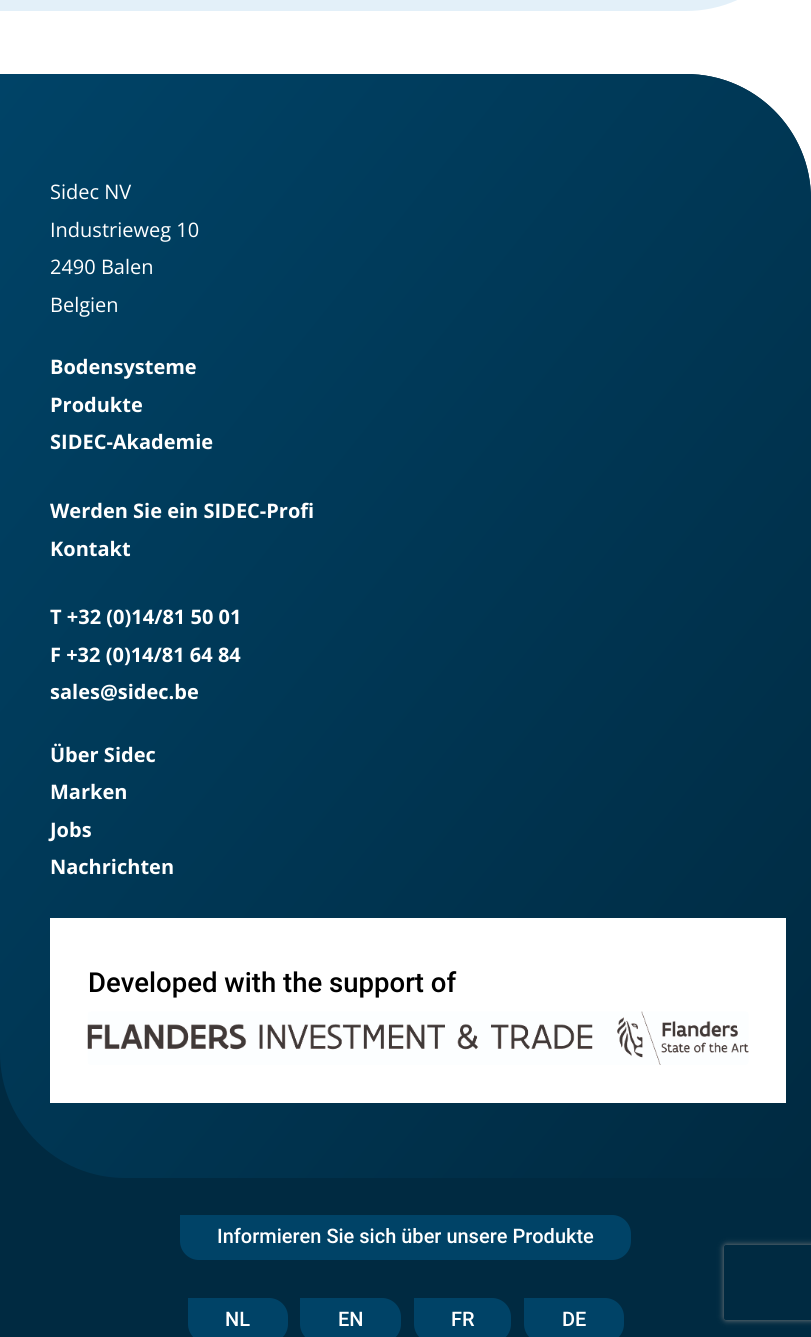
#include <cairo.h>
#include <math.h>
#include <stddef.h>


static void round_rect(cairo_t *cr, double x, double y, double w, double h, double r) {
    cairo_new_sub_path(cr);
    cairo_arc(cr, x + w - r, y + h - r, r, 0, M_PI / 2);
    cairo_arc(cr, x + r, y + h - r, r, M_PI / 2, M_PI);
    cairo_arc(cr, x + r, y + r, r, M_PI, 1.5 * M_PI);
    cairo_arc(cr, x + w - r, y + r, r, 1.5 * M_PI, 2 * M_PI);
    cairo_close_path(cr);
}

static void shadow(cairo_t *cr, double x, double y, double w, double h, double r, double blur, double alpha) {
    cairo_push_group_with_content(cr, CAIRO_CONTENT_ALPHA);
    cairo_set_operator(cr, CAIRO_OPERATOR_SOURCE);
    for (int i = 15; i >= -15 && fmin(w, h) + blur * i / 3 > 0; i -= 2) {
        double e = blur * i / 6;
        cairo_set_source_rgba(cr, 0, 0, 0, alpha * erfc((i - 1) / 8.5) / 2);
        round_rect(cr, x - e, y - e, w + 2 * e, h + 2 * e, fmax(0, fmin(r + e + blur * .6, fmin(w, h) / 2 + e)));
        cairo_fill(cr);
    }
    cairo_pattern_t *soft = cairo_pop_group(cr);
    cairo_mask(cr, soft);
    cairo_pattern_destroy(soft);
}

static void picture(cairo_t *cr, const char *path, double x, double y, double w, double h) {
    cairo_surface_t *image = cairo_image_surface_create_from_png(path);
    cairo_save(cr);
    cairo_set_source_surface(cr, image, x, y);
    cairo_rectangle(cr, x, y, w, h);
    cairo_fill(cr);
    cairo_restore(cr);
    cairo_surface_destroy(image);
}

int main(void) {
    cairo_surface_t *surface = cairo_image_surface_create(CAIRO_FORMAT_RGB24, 811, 1337);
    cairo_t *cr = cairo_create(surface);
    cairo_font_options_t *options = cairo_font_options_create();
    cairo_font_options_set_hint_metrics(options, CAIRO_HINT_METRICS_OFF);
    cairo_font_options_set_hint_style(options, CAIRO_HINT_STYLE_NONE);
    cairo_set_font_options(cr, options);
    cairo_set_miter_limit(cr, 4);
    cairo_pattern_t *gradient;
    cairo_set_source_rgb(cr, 1, 1, 1);
    cairo_paint(cr);
    cairo_set_source_rgb(cr, 0.89, 0.941, 0.976);
    cairo_new_path(cr);
    cairo_move_to(cr, 0, -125);
    cairo_line_to(cr, 811, -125);
    cairo_line_to(cr, 811, -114);
    cairo_curve_to(cr, 811, -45, 755, 11, 686, 11);
    cairo_line_to(cr, 0, 11);
    cairo_close_path(cr);
    cairo_fill(cr);
    cairo_set_source_rgb(cr, 0, 0.165, 0.255);
    cairo_new_path(cr);
    cairo_move_to(cr, 0, 74);
    cairo_line_to(cr, 686, 74);
    cairo_curve_to(cr, 755, 74, 811, 130, 811, 199);
    cairo_line_to(cr, 811, 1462);
    cairo_line_to(cr, 0, 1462);
    cairo_close_path(cr);
    cairo_fill(cr);
    gradient = cairo_pattern_create_linear(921, 1043, -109, 209);
    cairo_pattern_add_color_stop_rgba(gradient, 0, 0, 0.165, 0.255, 1);
    cairo_pattern_add_color_stop_rgba(gradient, 1, 0, 0.263, 0.404, 1);
    cairo_set_source(cr, gradient);
    cairo_pattern_destroy(gradient);
    cairo_new_path(cr);
    cairo_move_to(cr, 0, 74);
    cairo_line_to(cr, 686, 74);
    cairo_curve_to(cr, 755, 74, 811, 130, 811, 199);
    cairo_line_to(cr, 811, 1178);
    cairo_line_to(cr, 125, 1178);
    cairo_curve_to(cr, 56, 1178, 0, 1122, 0, 1053);
    cairo_close_path(cr);
    cairo_fill(cr);
    cairo_select_font_face(cr, "Open Sans", CAIRO_FONT_SLANT_NORMAL, CAIRO_FONT_WEIGHT_NORMAL);
    cairo_set_font_size(cr, 20);
    cairo_set_source_rgb(cr, 1, 1, 1);
    cairo_move_to(cr, 50, 199);
    cairo_show_text(cr, "Sidec NV");
    cairo_move_to(cr, 50, 237);
    cairo_show_text(cr, "Industrieweg 10");
    cairo_move_to(cr, 50, 274);
    cairo_show_text(cr, "2490 Balen");
    cairo_move_to(cr, 50, 312);
    cairo_show_text(cr, "Belgien");
    cairo_select_font_face(cr, "Open Sans", CAIRO_FONT_SLANT_NORMAL, CAIRO_FONT_WEIGHT_BOLD);
    cairo_move_to(cr, 50, 374);
    cairo_show_text(cr, "Bodensysteme");
    cairo_move_to(cr, 50, 412);
    cairo_show_text(cr, "Produkte");
    cairo_move_to(cr, 50, 449);
    cairo_show_text(cr, "SIDEC-Akademie");
    cairo_move_to(cr, 50, 518);
    cairo_show_text(cr, "Werden Sie ein SIDEC-Profi");
    cairo_move_to(cr, 50, 556);
    cairo_show_text(cr, "Kontakt");
    cairo_move_to(cr, 50, 624);
    cairo_show_text(cr, "T +32 (0)14/81 50 01");
    cairo_move_to(cr, 50, 662);
    cairo_show_text(cr, "F +32 (0)14/81 64 84");
    cairo_move_to(cr, 50, 699);
    cairo_show_text(cr, "sales@sidec.be");
    cairo_move_to(cr, 50, 762);
    cairo_show_text(cr, "Über Sidec");
    cairo_move_to(cr, 50, 799);
    cairo_show_text(cr, "Marken");
    cairo_move_to(cr, 50, 837);
    cairo_show_text(cr, "Jobs");
    cairo_move_to(cr, 50, 874);
    cairo_show_text(cr, "Nachrichten");
    cairo_rectangle(cr, 50, 918, 736, 185);
    cairo_fill(cr);
    cairo_select_font_face(cr, "Roboto Medium", CAIRO_FONT_SLANT_NORMAL, CAIRO_FONT_WEIGHT_NORMAL);
    cairo_set_font_size(cr, 27.5);
    cairo_set_source_rgb(cr, 0, 0, 0);
    cairo_move_to(cr, 88, 992);
    cairo_show_text(cr, "Developed with the support of");
    picture(cr, "img1.png", 87, 1011, 662, 54);
    cairo_set_source_rgb(cr, 0, 0.263, 0.404);
    cairo_new_path(cr);
    cairo_move_to(cr, 180, 1215);
    cairo_line_to(cr, 612, 1215);
    cairo_curve_to(cr, 622.5, 1215, 631, 1223.5, 631, 1234);
    cairo_line_to(cr, 631, 1241);
    cairo_curve_to(cr, 631, 1251.5, 622.5, 1260, 612, 1260);
    cairo_line_to(cr, 199, 1260);
    cairo_curve_to(cr, 188.5, 1260, 180, 1251.5, 180, 1241);
    cairo_close_path(cr);
    cairo_fill(cr);
    cairo_set_font_size(cr, 20);
    cairo_set_source_rgb(cr, 1, 1, 1);
    cairo_move_to(cr, 217, 1243);
    cairo_show_text(cr, "Informieren Sie sich über unsere Produkte");
    cairo_set_source_rgb(cr, 0, 0.263, 0.404);
    cairo_new_path(cr);
    cairo_move_to(cr, 188, 1298);
    cairo_line_to(cr, 269, 1298);
    cairo_curve_to(cr, 279.5, 1298, 288, 1306.5, 288, 1317);
    cairo_line_to(cr, 288, 1324);
    cairo_curve_to(cr, 288, 1334.5, 279.5, 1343, 269, 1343);
    cairo_line_to(cr, 207, 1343);
    cairo_curve_to(cr, 196.5, 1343, 188, 1334.5, 188, 1324);
    cairo_close_path(cr);
    cairo_fill(cr);
    cairo_set_source_rgb(cr, 1, 1, 1);
    cairo_move_to(cr, 225, 1326);
    cairo_show_text(cr, "NL");
    cairo_set_source_rgb(cr, 0, 0.263, 0.404);
    cairo_new_path(cr);
    cairo_move_to(cr, 300, 1298);
    cairo_line_to(cr, 382, 1298);
    cairo_curve_to(cr, 392.5, 1298, 401, 1306.5, 401, 1317);
    cairo_line_to(cr, 401, 1324);
    cairo_curve_to(cr, 401, 1334.5, 392.5, 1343, 382, 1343);
    cairo_line_to(cr, 319, 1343);
    cairo_curve_to(cr, 308.5, 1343, 300, 1334.5, 300, 1324);
    cairo_close_path(cr);
    cairo_fill(cr);
    cairo_set_source_rgb(cr, 1, 1, 1);
    cairo_move_to(cr, 338, 1326);
    cairo_show_text(cr, "EN");
    cairo_set_source_rgb(cr, 0, 0.263, 0.404);
    cairo_new_path(cr);
    cairo_move_to(cr, 414, 1298);
    cairo_line_to(cr, 492, 1298);
    cairo_curve_to(cr, 502.5, 1298, 511, 1306.5, 511, 1317);
    cairo_line_to(cr, 511, 1324);
    cairo_curve_to(cr, 511, 1334.5, 502.5, 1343, 492, 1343);
    cairo_line_to(cr, 433, 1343);
    cairo_curve_to(cr, 422.5, 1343, 414, 1334.5, 414, 1324);
    cairo_close_path(cr);
    cairo_fill(cr);
    cairo_set_source_rgb(cr, 1, 1, 1);
    cairo_move_to(cr, 451, 1326);
    cairo_show_text(cr, "FR");
    cairo_set_source_rgb(cr, 0, 0.263, 0.404);
    cairo_new_path(cr);
    cairo_move_to(cr, 524, 1298);
    cairo_line_to(cr, 605, 1298);
    cairo_curve_to(cr, 615.5, 1298, 624, 1306.5, 624, 1317);
    cairo_line_to(cr, 624, 1324);
    cairo_curve_to(cr, 624, 1334.5, 615.5, 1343, 605, 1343);
    cairo_line_to(cr, 543, 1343);
    cairo_curve_to(cr, 532.5, 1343, 524, 1334.5, 524, 1324);
    cairo_close_path(cr);
    cairo_fill(cr);
    cairo_set_source_rgb(cr, 1, 1, 1);
    cairo_move_to(cr, 562, 1326);
    cairo_show_text(cr, "DE");
    cairo_save(cr);
    cairo_set_fill_rule(cr, CAIRO_FILL_RULE_EVEN_ODD);
    cairo_new_path(cr);
    cairo_move_to(cr, 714, 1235);
    cairo_line_to(cr, 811, 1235);
    cairo_line_to(cr, 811, 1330);
    cairo_line_to(cr, 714, 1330);
    cairo_close_path(cr);
    cairo_move_to(cr, 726.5, 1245);
    cairo_line_to(cr, 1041.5, 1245);
    cairo_curve_to(cr, 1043, 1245, 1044, 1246, 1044, 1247.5);
    cairo_line_to(cr, 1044, 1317.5);
    cairo_curve_to(cr, 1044, 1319, 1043, 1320, 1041.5, 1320);
    cairo_line_to(cr, 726.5, 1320);
    cairo_curve_to(cr, 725, 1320, 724, 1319, 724, 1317.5);
    cairo_line_to(cr, 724, 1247.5);
    cairo_curve_to(cr, 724, 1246, 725, 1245, 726.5, 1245);
    cairo_close_path(cr);
    cairo_clip(cr);
    cairo_set_source_rgb(cr, 0.502, 0.502, 0.502);
    shadow(cr, 724, 1245, 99, 75, 2.5, 3, 1);
    cairo_restore(cr);
    cairo_surface_write_to_png(surface, "page.png");
    cairo_font_options_destroy(options);
    cairo_destroy(cr);
    cairo_surface_destroy(surface);
    return 0;
}
